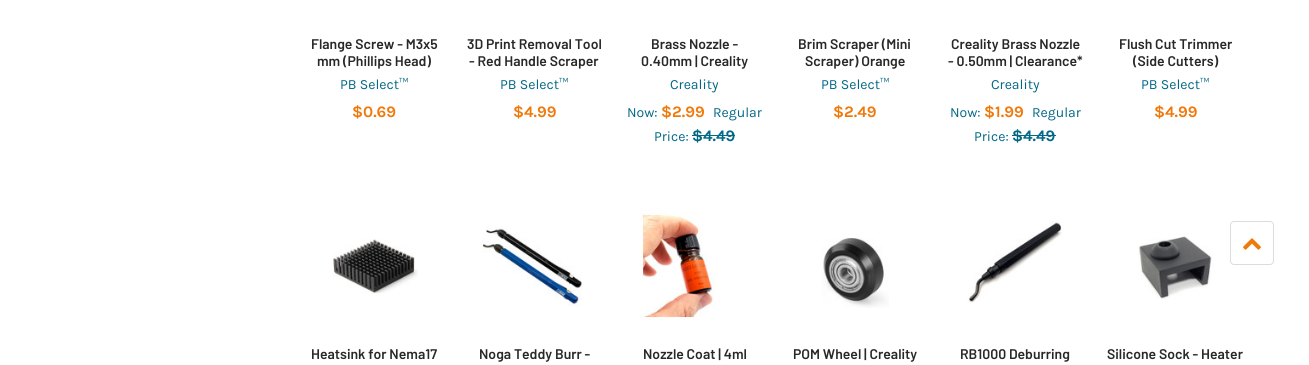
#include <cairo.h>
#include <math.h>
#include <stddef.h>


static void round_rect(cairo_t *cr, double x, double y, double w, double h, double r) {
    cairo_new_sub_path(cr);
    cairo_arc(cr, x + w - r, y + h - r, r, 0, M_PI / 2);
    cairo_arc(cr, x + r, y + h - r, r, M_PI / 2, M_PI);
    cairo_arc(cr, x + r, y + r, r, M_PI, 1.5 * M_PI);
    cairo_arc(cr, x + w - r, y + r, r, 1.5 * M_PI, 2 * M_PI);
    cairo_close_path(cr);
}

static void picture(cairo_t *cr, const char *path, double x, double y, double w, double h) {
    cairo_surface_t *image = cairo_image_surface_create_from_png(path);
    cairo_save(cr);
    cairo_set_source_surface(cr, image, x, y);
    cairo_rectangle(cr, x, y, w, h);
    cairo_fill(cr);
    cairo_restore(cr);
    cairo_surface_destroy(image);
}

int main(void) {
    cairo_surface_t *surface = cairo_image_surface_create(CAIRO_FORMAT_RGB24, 1309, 365);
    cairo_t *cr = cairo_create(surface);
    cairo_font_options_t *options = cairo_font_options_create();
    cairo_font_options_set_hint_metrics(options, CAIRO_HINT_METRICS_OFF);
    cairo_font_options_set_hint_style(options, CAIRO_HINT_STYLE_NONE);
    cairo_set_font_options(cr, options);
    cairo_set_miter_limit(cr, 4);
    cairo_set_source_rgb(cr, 1, 1, 1);
    cairo_paint(cr);
    cairo_select_font_face(cr, "Barlow SemiBold", CAIRO_FONT_SLANT_NORMAL, CAIRO_FONT_WEIGHT_NORMAL);
    cairo_set_font_size(cr, 14);
    cairo_set_source_rgb(cr, 0.157, 0.157, 0.157);
    cairo_move_to(cr, 311, 49);
    cairo_show_text(cr, "Flange Screw - M3x5");
    cairo_move_to(cr, 317, 66);
    cairo_show_text(cr, "mm (Phillips Head)");
    cairo_select_font_face(cr, "Karla", CAIRO_FONT_SLANT_NORMAL, CAIRO_FONT_WEIGHT_NORMAL);
    cairo_set_source_rgb(cr, 0.012, 0.408, 0.529);
    cairo_move_to(cr, 340, 89);
    cairo_show_text(cr, "PB Select™");
    cairo_select_font_face(cr, "Karla", CAIRO_FONT_SLANT_NORMAL, CAIRO_FONT_WEIGHT_BOLD);
    cairo_set_font_size(cr, 16);
    cairo_set_source_rgb(cr, 0.941, 0.475, 0.043);
    cairo_move_to(cr, 352, 117);
    cairo_show_text(cr, "$0.69");
    cairo_select_font_face(cr, "Barlow SemiBold", CAIRO_FONT_SLANT_NORMAL, CAIRO_FONT_WEIGHT_NORMAL);
    cairo_set_font_size(cr, 14);
    cairo_set_source_rgb(cr, 0.157, 0.157, 0.157);
    cairo_move_to(cr, 467, 49);
    cairo_show_text(cr, "3D Print Removal Tool");
    cairo_move_to(cr, 469, 66);
    cairo_show_text(cr, "- Red Handle Scraper");
    cairo_select_font_face(cr, "Karla", CAIRO_FONT_SLANT_NORMAL, CAIRO_FONT_WEIGHT_NORMAL);
    cairo_set_source_rgb(cr, 0.012, 0.408, 0.529);
    cairo_move_to(cr, 500, 89);
    cairo_show_text(cr, "PB Select™");
    cairo_select_font_face(cr, "Karla", CAIRO_FONT_SLANT_NORMAL, CAIRO_FONT_WEIGHT_BOLD);
    cairo_set_font_size(cr, 16);
    cairo_set_source_rgb(cr, 0.941, 0.475, 0.043);
    cairo_move_to(cr, 513, 117);
    cairo_show_text(cr, "$4.99");
    cairo_select_font_face(cr, "Barlow SemiBold", CAIRO_FONT_SLANT_NORMAL, CAIRO_FONT_WEIGHT_NORMAL);
    cairo_set_font_size(cr, 14);
    cairo_set_source_rgb(cr, 0.157, 0.157, 0.157);
    cairo_move_to(cr, 651, 49);
    cairo_show_text(cr, "Brass Nozzle -");
    cairo_move_to(cr, 641, 66);
    cairo_show_text(cr, "0.40mm | Creality");
    cairo_select_font_face(cr, "Karla", CAIRO_FONT_SLANT_NORMAL, CAIRO_FONT_WEIGHT_NORMAL);
    cairo_set_source_rgb(cr, 0.012, 0.408, 0.529);
    cairo_move_to(cr, 670, 89);
    cairo_show_text(cr, "Creality");
    cairo_move_to(cr, 627, 117);
    cairo_show_text(cr, "Now:");
    cairo_select_font_face(cr, "Karla", CAIRO_FONT_SLANT_NORMAL, CAIRO_FONT_WEIGHT_BOLD);
    cairo_set_font_size(cr, 16);
    cairo_set_source_rgb(cr, 0.941, 0.475, 0.043);
    cairo_move_to(cr, 661, 117);
    cairo_show_text(cr, "$2.99");
    cairo_select_font_face(cr, "Karla", CAIRO_FONT_SLANT_NORMAL, CAIRO_FONT_WEIGHT_NORMAL);
    cairo_set_font_size(cr, 14);
    cairo_set_source_rgb(cr, 0.012, 0.408, 0.529);
    cairo_move_to(cr, 713, 117);
    cairo_show_text(cr, "Regular");
    cairo_move_to(cr, 654, 141);
    cairo_show_text(cr, "Price:");
    cairo_select_font_face(cr, "Karla", CAIRO_FONT_SLANT_NORMAL, CAIRO_FONT_WEIGHT_BOLD);
    cairo_set_font_size(cr, 16);
    cairo_move_to(cr, 692, 141);
    cairo_show_text(cr, "$4.49");
    cairo_rectangle(cr, 692, 135, 43, 1);
    cairo_fill(cr);
    cairo_select_font_face(cr, "Barlow SemiBold", CAIRO_FONT_SLANT_NORMAL, CAIRO_FONT_WEIGHT_NORMAL);
    cairo_set_font_size(cr, 14);
    cairo_set_source_rgb(cr, 0.157, 0.157, 0.157);
    cairo_move_to(cr, 798, 49);
    cairo_show_text(cr, "Brim Scraper (Mini");
    cairo_move_to(cr, 805, 66);
    cairo_show_text(cr, "Scraper) Orange");
    cairo_select_font_face(cr, "Karla", CAIRO_FONT_SLANT_NORMAL, CAIRO_FONT_WEIGHT_NORMAL);
    cairo_set_source_rgb(cr, 0.012, 0.408, 0.529);
    cairo_move_to(cr, 821, 89);
    cairo_show_text(cr, "PB Select™");
    cairo_select_font_face(cr, "Karla", CAIRO_FONT_SLANT_NORMAL, CAIRO_FONT_WEIGHT_BOLD);
    cairo_set_font_size(cr, 16);
    cairo_set_source_rgb(cr, 0.941, 0.475, 0.043);
    cairo_move_to(cr, 833, 117);
    cairo_show_text(cr, "$2.49");
    cairo_select_font_face(cr, "Barlow SemiBold", CAIRO_FONT_SLANT_NORMAL, CAIRO_FONT_WEIGHT_NORMAL);
    cairo_set_font_size(cr, 14);
    cairo_set_source_rgb(cr, 0.157, 0.157, 0.157);
    cairo_move_to(cr, 951, 49);
    cairo_show_text(cr, "Creality Brass Nozzle");
    cairo_move_to(cr, 948, 66);
    cairo_show_text(cr, "- 0.50mm | Clearance*");
    cairo_select_font_face(cr, "Karla", CAIRO_FONT_SLANT_NORMAL, CAIRO_FONT_WEIGHT_NORMAL);
    cairo_set_source_rgb(cr, 0.012, 0.408, 0.529);
    cairo_move_to(cr, 991, 89);
    cairo_show_text(cr, "Creality");
    cairo_move_to(cr, 950, 117);
    cairo_show_text(cr, "Now:");
    cairo_select_font_face(cr, "Karla", CAIRO_FONT_SLANT_NORMAL, CAIRO_FONT_WEIGHT_BOLD);
    cairo_set_font_size(cr, 16);
    cairo_set_source_rgb(cr, 0.941, 0.475, 0.043);
    cairo_move_to(cr, 984, 117);
    cairo_show_text(cr, "$1.99");
    cairo_select_font_face(cr, "Karla", CAIRO_FONT_SLANT_NORMAL, CAIRO_FONT_WEIGHT_NORMAL);
    cairo_set_font_size(cr, 14);
    cairo_set_source_rgb(cr, 0.012, 0.408, 0.529);
    cairo_move_to(cr, 1032, 117);
    cairo_show_text(cr, "Regular");
    cairo_move_to(cr, 974, 141);
    cairo_show_text(cr, "Price:");
    cairo_select_font_face(cr, "Karla", CAIRO_FONT_SLANT_NORMAL, CAIRO_FONT_WEIGHT_BOLD);
    cairo_set_font_size(cr, 16);
    cairo_move_to(cr, 1012, 141);
    cairo_show_text(cr, "$4.49");
    cairo_rectangle(cr, 1012, 135, 44, 1);
    cairo_fill(cr);
    cairo_select_font_face(cr, "Barlow SemiBold", CAIRO_FONT_SLANT_NORMAL, CAIRO_FONT_WEIGHT_NORMAL);
    cairo_set_font_size(cr, 14);
    cairo_set_source_rgb(cr, 0.157, 0.157, 0.157);
    cairo_move_to(cr, 1119, 49);
    cairo_show_text(cr, "Flush Cut Trimmer");
    cairo_move_to(cr, 1133, 66);
    cairo_show_text(cr, "(Side Cutters)");
    cairo_select_font_face(cr, "Karla", CAIRO_FONT_SLANT_NORMAL, CAIRO_FONT_WEIGHT_NORMAL);
    cairo_set_source_rgb(cr, 0.012, 0.408, 0.529);
    cairo_move_to(cr, 1141, 89);
    cairo_show_text(cr, "PB Select™");
    cairo_select_font_face(cr, "Karla", CAIRO_FONT_SLANT_NORMAL, CAIRO_FONT_WEIGHT_BOLD);
    cairo_set_font_size(cr, 16);
    cairo_set_source_rgb(cr, 0.941, 0.475, 0.043);
    cairo_move_to(cr, 1154, 117);
    cairo_show_text(cr, "$4.99");
    picture(cr, "img1.png", 333, 239, 85, 55);
    cairo_select_font_face(cr, "Barlow SemiBold", CAIRO_FONT_SLANT_NORMAL, CAIRO_FONT_WEIGHT_NORMAL);
    cairo_set_font_size(cr, 14);
    cairo_set_source_rgb(cr, 0.157, 0.157, 0.157);
    cairo_move_to(cr, 311, 359);
    cairo_show_text(cr, "Heatsink for Nema17");
    picture(cr, "img2.png", 482, 226, 100, 81);
    cairo_move_to(cr, 479, 359);
    cairo_show_text(cr, "Noga Teddy Burr -");
    picture(cr, "img3.png", 640, 213, 75, 107);
    cairo_move_to(cr, 643, 359);
    cairo_show_text(cr, "Nozzle Coat | 4ml");
    picture(cr, "img4.png", 821, 237, 68, 71);
    cairo_move_to(cr, 793, 359);
    cairo_show_text(cr, "POM Wheel | Creality");
    picture(cr, "img5.png", 967, 221, 96, 82);
    cairo_move_to(cr, 960, 359);
    cairo_show_text(cr, "RB1000 Deburring");
    picture(cr, "img6.png", 1138, 233, 76, 67);
    cairo_move_to(cr, 1107, 359);
    cairo_show_text(cr, "Silicone Sock - Heater");
    round_rect(cr, 1230.5, 221.5, 43, 43, 3.5);
    cairo_set_source_rgb(cr, 0.863, 0.863, 0.863);
    cairo_set_line_width(cr, 1);
    cairo_stroke(cr);
    picture(cr, "img7.png", 1243, 238, 18, 12);
    cairo_surface_write_to_png(surface, "page.png");
    cairo_font_options_destroy(options);
    cairo_destroy(cr);
    cairo_surface_destroy(surface);
    return 0;
}
